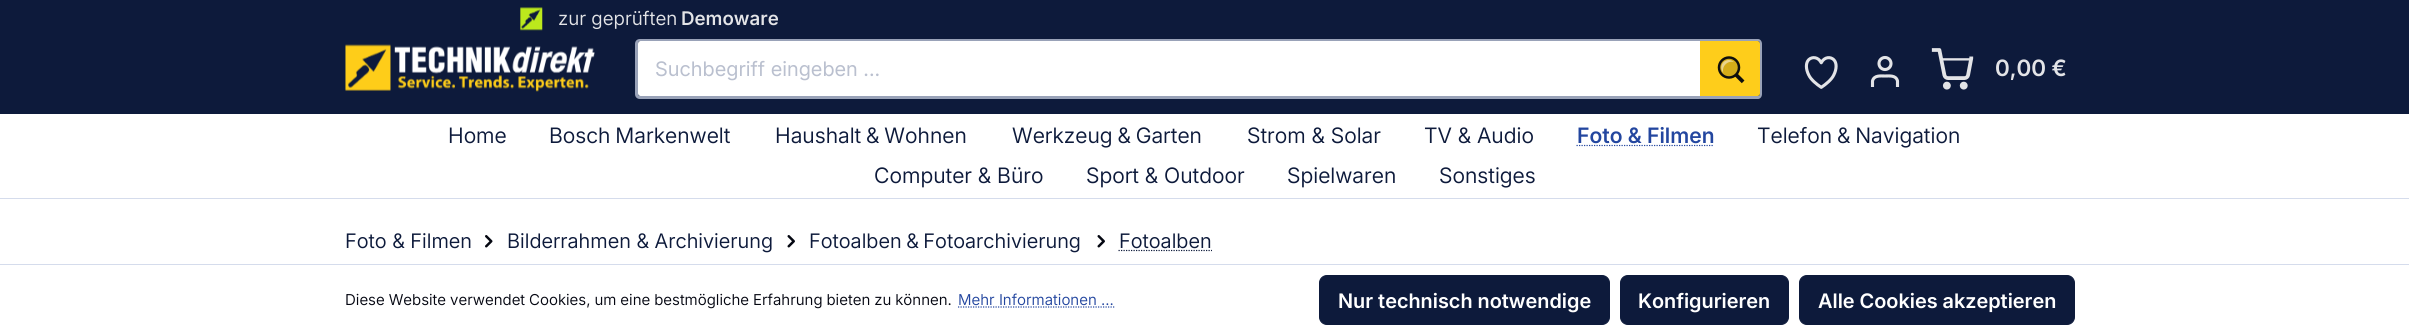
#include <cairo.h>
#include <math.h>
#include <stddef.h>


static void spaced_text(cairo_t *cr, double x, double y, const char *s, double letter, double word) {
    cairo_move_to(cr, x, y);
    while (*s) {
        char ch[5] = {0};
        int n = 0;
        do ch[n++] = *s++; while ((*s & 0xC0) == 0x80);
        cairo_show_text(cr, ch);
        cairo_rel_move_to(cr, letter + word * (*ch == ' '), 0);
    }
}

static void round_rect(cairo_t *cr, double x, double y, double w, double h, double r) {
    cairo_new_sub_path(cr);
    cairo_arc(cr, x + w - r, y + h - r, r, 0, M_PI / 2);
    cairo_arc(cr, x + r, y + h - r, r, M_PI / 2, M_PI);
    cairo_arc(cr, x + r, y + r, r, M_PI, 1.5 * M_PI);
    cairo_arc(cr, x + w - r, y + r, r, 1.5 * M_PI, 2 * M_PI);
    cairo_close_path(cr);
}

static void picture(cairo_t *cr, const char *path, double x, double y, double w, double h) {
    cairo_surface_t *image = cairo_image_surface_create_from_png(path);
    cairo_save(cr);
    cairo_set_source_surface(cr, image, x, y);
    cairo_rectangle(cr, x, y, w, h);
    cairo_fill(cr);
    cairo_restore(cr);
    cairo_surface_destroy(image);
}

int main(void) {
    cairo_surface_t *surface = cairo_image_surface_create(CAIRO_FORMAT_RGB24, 2409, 334);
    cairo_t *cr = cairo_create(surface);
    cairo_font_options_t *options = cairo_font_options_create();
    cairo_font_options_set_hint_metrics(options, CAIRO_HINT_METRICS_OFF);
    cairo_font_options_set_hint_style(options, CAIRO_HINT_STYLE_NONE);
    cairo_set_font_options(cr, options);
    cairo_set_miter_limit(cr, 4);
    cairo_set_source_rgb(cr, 1, 1, 1);
    cairo_paint(cr);
    cairo_set_source_rgb(cr, 0.051, 0.102, 0.231);
    cairo_rectangle(cr, 0, 0, 2409, 114);
    cairo_fill(cr);
    picture(cr, "img1.png", 520, 7, 23, 24);
    cairo_select_font_face(cr, "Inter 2", CAIRO_FONT_SLANT_NORMAL, CAIRO_FONT_WEIGHT_NORMAL);
    cairo_set_font_size(cr, 18.75);
    cairo_set_source_rgb(cr, 0.89, 0.894, 0.906);
    cairo_move_to(cr, 558, 25);
    cairo_show_text(cr, "zur geprüften");
    cairo_select_font_face(cr, "Inter 2 SemiBold", CAIRO_FONT_SLANT_NORMAL, CAIRO_FONT_WEIGHT_NORMAL);
    cairo_move_to(cr, 681, 25);
    cairo_show_text(cr, "Demoware");
    picture(cr, "img2.png", 345, 44, 250, 48);
    cairo_set_source_rgb(cr, 1, 1, 1);
    cairo_new_path(cr);
    cairo_move_to(cr, 640.5, 41);
    cairo_line_to(cr, 1703, 41);
    cairo_line_to(cr, 1703, 96);
    cairo_line_to(cr, 640.5, 96);
    cairo_curve_to(cr, 639, 96, 638, 95, 638, 93.5);
    cairo_line_to(cr, 638, 43.5);
    cairo_curve_to(cr, 638, 42, 639, 41, 640.5, 41);
    cairo_close_path(cr);
    cairo_fill(cr);
    cairo_set_source_rgb(cr, 0.6, 0.635, 0.722);
    cairo_set_fill_rule(cr, CAIRO_FILL_RULE_EVEN_ODD);
    cairo_new_path(cr);
    cairo_move_to(cr, 640, 39);
    cairo_line_to(cr, 1702, 39);
    cairo_line_to(cr, 1702, 99);
    cairo_line_to(cr, 640, 99);
    cairo_curve_to(cr, 637, 99, 635, 97, 635, 94);
    cairo_line_to(cr, 635, 44);
    cairo_curve_to(cr, 635, 41, 637, 39, 640, 39);
    cairo_close_path(cr);
    cairo_move_to(cr, 640, 41);
    cairo_line_to(cr, 1702, 41);
    cairo_line_to(cr, 1702, 96);
    cairo_line_to(cr, 640, 96);
    cairo_curve_to(cr, 639, 96, 638, 95, 638, 94);
    cairo_line_to(cr, 638, 44);
    cairo_curve_to(cr, 638, 42, 639, 41, 640, 41);
    cairo_close_path(cr);
    cairo_fill(cr);
    cairo_select_font_face(cr, "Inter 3", CAIRO_FONT_SLANT_NORMAL, CAIRO_FONT_WEIGHT_NORMAL);
    cairo_set_font_size(cr, 20);
    cairo_set_source_rgb(cr, 0.729, 0.753, 0.812);
    cairo_move_to(cr, 655, 76);
    cairo_show_text(cr, "Suchbegriff eingeben ...");
    cairo_set_source_rgb(cr, 0.996, 0.804, 0.106);
    cairo_new_path(cr);
    cairo_move_to(cr, 1700, 41);
    cairo_line_to(cr, 1757.5, 41);
    cairo_curve_to(cr, 1759, 41, 1760, 42, 1760, 43.5);
    cairo_line_to(cr, 1760, 93.5);
    cairo_curve_to(cr, 1760, 95, 1759, 96, 1757.5, 96);
    cairo_line_to(cr, 1700, 96);
    cairo_close_path(cr);
    cairo_fill(cr);
    cairo_set_source_rgb(cr, 0.6, 0.635, 0.722);
    cairo_new_path(cr);
    cairo_move_to(cr, 1700, 39);
    cairo_line_to(cr, 1758, 39);
    cairo_curve_to(cr, 1760, 39, 1762, 41, 1762, 44);
    cairo_line_to(cr, 1762, 94);
    cairo_curve_to(cr, 1762, 97, 1760, 99, 1758, 99);
    cairo_line_to(cr, 1700, 99);
    cairo_close_path(cr);
    cairo_move_to(cr, 1700, 41);
    cairo_line_to(cr, 1758, 41);
    cairo_curve_to(cr, 1759, 41, 1760, 42, 1760, 44);
    cairo_line_to(cr, 1760, 94);
    cairo_curve_to(cr, 1760, 95, 1759, 96, 1758, 96);
    cairo_line_to(cr, 1700, 96);
    cairo_close_path(cr);
    cairo_fill(cr);
    picture(cr, "img3.png", 1717, 56, 28, 28);
    picture(cr, "img4.png", 1804, 56, 34, 33);
    cairo_new_path(cr);
    cairo_move_to(cr, 1897.5, 87);
    cairo_line_to(cr, 1897.5, 81);
    cairo_curve_to(cr, 1896, 75, 1889.5, 76, 1885, 76);
    cairo_curve_to(cr, 1880.5, 76, 1874, 75, 1872.5, 81);
    cairo_line_to(cr, 1872.5, 87);
    cairo_set_source_rgb(cr, 0.89, 0.894, 0.906);
    cairo_set_line_width(cr, 3.1);
    cairo_set_line_join(cr, CAIRO_LINE_JOIN_ROUND);
    cairo_stroke(cr);
    cairo_arc(cr, 1885, 63.5, 6, 0, 2 * M_PI);
    cairo_set_line_join(cr, CAIRO_LINE_JOIN_MITER);
    cairo_stroke(cr);
    picture(cr, "img5.png", 1931, 48, 43, 42);
    cairo_select_font_face(cr, "Inter SemiBold", CAIRO_FONT_SLANT_NORMAL, CAIRO_FONT_WEIGHT_NORMAL);
    cairo_set_font_size(cr, 22.5);
    cairo_move_to(cr, 1995, 76);
    cairo_show_text(cr, "0,00 €");
    cairo_set_source_rgb(cr, 0.835, 0.863, 0.922);
    cairo_rectangle(cr, 0, 198, 2409, 1);
    cairo_fill(cr);
    cairo_select_font_face(cr, "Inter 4", CAIRO_FONT_SLANT_NORMAL, CAIRO_FONT_WEIGHT_NORMAL);
    cairo_set_font_size(cr, 21.25);
    cairo_set_source_rgb(cr, 0.051, 0.102, 0.231);
    cairo_move_to(cr, 448, 143);
    cairo_show_text(cr, "Home");
    spaced_text(cr, 549, 143, "Bosch Markenwelt", 0, -1);
    spaced_text(cr, 775, 143, "Haushalt & Wohnen", 0, -1);
    spaced_text(cr, 1012, 143, "Werkzeug & Garten", 0, -1);
    cairo_move_to(cr, 1247, 143);
    cairo_show_text(cr, "Strom & Solar");
    cairo_move_to(cr, 1424, 143);
    cairo_show_text(cr, "TV & Audio");
    cairo_select_font_face(cr, "Inter 3 SemiBold", CAIRO_FONT_SLANT_NORMAL, CAIRO_FONT_WEIGHT_NORMAL);
    cairo_set_source_rgb(cr, 0.137, 0.275, 0.624);
    cairo_move_to(cr, 1577, 143);
    cairo_show_text(cr, "Foto & Filmen");
    cairo_new_path(cr);
    cairo_move_to(cr, 1576.5, 145.5);
    cairo_line_to(cr, 1714, 145.5);
    cairo_set_line_width(cr, 1.2);
    cairo_set_dash(cr, (double[]){1.25, 1.25}, 2, 0);
    cairo_stroke(cr);
    cairo_select_font_face(cr, "Inter 4", CAIRO_FONT_SLANT_NORMAL, CAIRO_FONT_WEIGHT_NORMAL);
    cairo_set_source_rgb(cr, 0.051, 0.102, 0.231);
    spaced_text(cr, 1757, 143, "Telefon & Navigation", 0, -1);
    cairo_move_to(cr, 874, 183);
    cairo_show_text(cr, "Computer & Büro");
    cairo_move_to(cr, 1086, 183);
    cairo_show_text(cr, "Sport & Outdoor");
    cairo_move_to(cr, 1287, 183);
    cairo_show_text(cr, "Spielwaren");
    cairo_move_to(cr, 1439, 183);
    cairo_show_text(cr, "Sonstiges");
    cairo_select_font_face(cr, "Inter", CAIRO_FONT_SLANT_NORMAL, CAIRO_FONT_WEIGHT_NORMAL);
    cairo_set_font_size(cr, 20);
    cairo_move_to(cr, 345, 248);
    cairo_show_text(cr, "Foto & Filmen");
    picture(cr, "img6.png", 485, 235, 8, 13);
    cairo_move_to(cr, 507, 248);
    cairo_show_text(cr, "Bilderrahmen & Archivierung");
    picture(cr, "img7.png", 787, 235, 8, 13);
    spaced_text(cr, 809, 248, "Fotoalben & Fotoarchivierung", 0, -1);
    picture(cr, "img7.png", 1097, 235, 8, 13);
    cairo_move_to(cr, 1119, 248);
    cairo_show_text(cr, "Fotoalben");
    cairo_new_path(cr);
    cairo_move_to(cr, 1118.5, 250.5);
    cairo_line_to(cr, 1212, 250.5);
    cairo_stroke(cr);
    cairo_set_source_rgb(cr, 0.835, 0.863, 0.922);
    cairo_rectangle(cr, 0, 264, 2409, 1);
    cairo_fill(cr);
    cairo_select_font_face(cr, "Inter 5", CAIRO_FONT_SLANT_NORMAL, CAIRO_FONT_WEIGHT_NORMAL);
    cairo_set_font_size(cr, 15);
    cairo_set_source_rgb(cr, 0.016, 0.027, 0.067);
    spaced_text(cr, 345, 305, "Diese Website verwendet Cookies, um eine bestmögliche Erfahrung bieten zu können.", 0, -0.25);
    cairo_set_source_rgb(cr, 0.137, 0.275, 0.624);
    cairo_move_to(cr, 958, 305);
    cairo_show_text(cr, "Mehr Informationen ...");
    cairo_new_path(cr);
    cairo_move_to(cr, 958, 307);
    cairo_line_to(cr, 1114.5, 307);
    cairo_stroke(cr);
    cairo_set_source_rgb(cr, 0.051, 0.102, 0.231);
    round_rect(cr, 1319.5, 275.5, 290, 49, 7.5);
    cairo_fill_preserve(cr);
    cairo_set_line_width(cr, 1);
    cairo_set_dash(cr, NULL, 0, 0);
    cairo_stroke(cr);
    cairo_select_font_face(cr, "Inter 4 SemiBold", CAIRO_FONT_SLANT_NORMAL, CAIRO_FONT_WEIGHT_NORMAL);
    cairo_set_font_size(cr, 20);
    cairo_set_source_rgb(cr, 1, 1, 1);
    cairo_move_to(cr, 1338, 308);
    cairo_show_text(cr, "Nur technisch notwendige");
    cairo_set_source_rgb(cr, 0.051, 0.102, 0.231);
    round_rect(cr, 1620.5, 275.5, 168, 49, 7.5);
    cairo_fill_preserve(cr);
    cairo_stroke(cr);
    cairo_set_source_rgb(cr, 1, 1, 1);
    cairo_move_to(cr, 1638, 308);
    cairo_show_text(cr, "Konfigurieren");
    cairo_set_source_rgb(cr, 0.051, 0.102, 0.231);
    round_rect(cr, 1799.5, 275.5, 275, 49, 7.5);
    cairo_fill_preserve(cr);
    cairo_stroke(cr);
    cairo_set_source_rgb(cr, 1, 1, 1);
    cairo_move_to(cr, 1818, 308);
    cairo_show_text(cr, "Alle Cookies akzeptieren");
    cairo_surface_write_to_png(surface, "page.png");
    cairo_font_options_destroy(options);
    cairo_destroy(cr);
    cairo_surface_destroy(surface);
    return 0;
}
